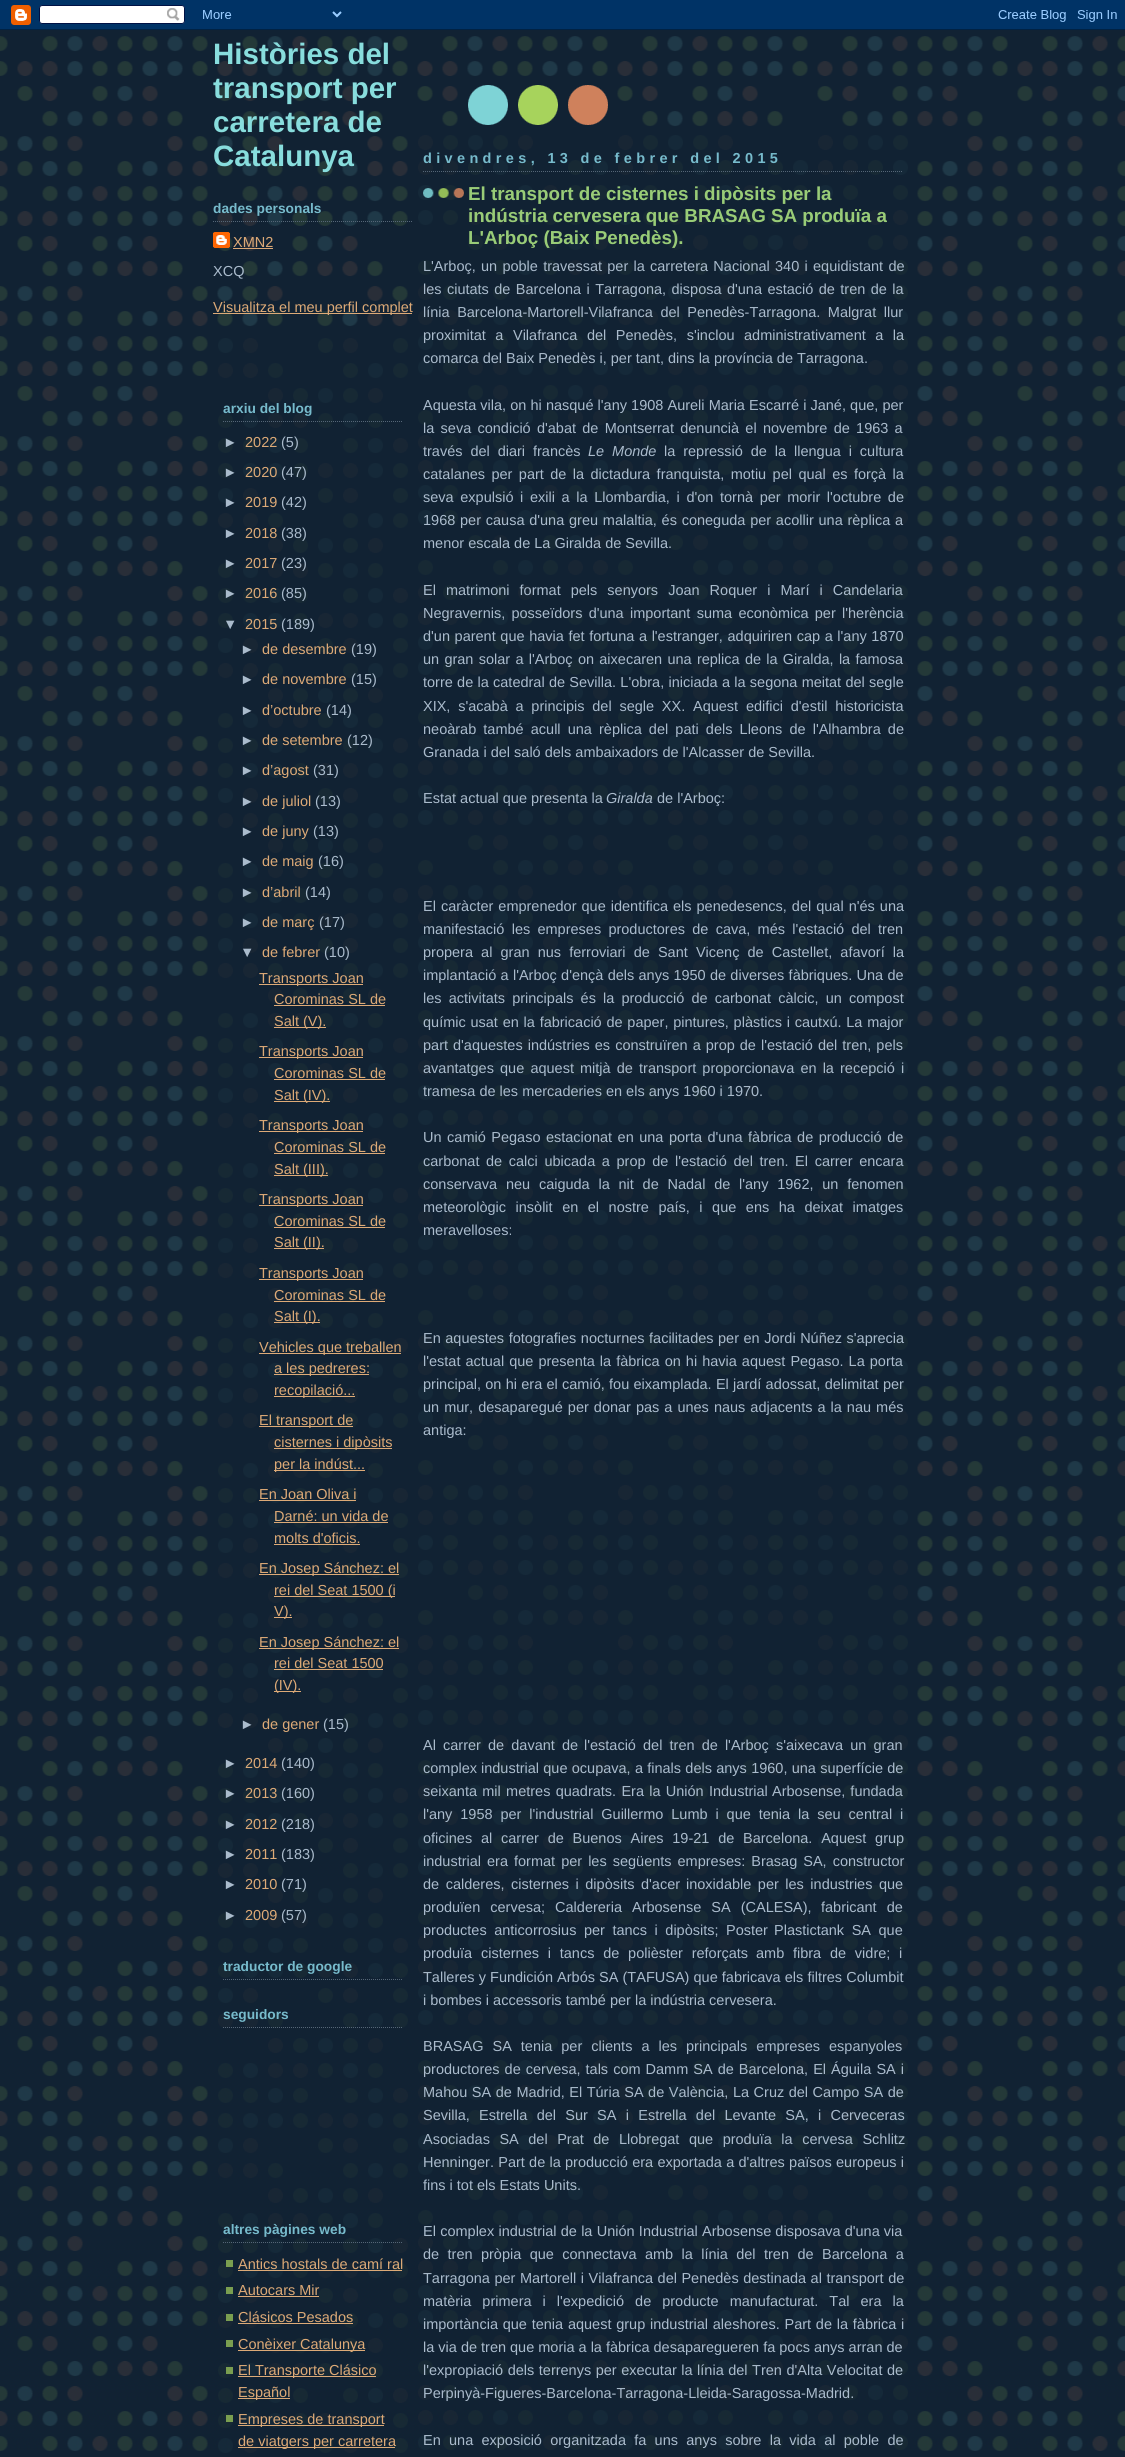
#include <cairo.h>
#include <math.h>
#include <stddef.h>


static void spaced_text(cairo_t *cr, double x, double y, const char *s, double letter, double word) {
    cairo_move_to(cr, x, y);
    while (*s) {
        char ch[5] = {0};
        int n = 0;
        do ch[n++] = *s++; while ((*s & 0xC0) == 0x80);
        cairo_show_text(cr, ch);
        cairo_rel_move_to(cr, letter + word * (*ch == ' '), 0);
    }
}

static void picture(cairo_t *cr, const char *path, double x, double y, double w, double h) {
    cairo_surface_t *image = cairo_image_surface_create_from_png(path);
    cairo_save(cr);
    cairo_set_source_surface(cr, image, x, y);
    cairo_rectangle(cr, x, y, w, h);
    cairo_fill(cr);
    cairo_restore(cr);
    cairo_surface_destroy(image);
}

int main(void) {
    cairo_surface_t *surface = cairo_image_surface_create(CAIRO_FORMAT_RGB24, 1125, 2457);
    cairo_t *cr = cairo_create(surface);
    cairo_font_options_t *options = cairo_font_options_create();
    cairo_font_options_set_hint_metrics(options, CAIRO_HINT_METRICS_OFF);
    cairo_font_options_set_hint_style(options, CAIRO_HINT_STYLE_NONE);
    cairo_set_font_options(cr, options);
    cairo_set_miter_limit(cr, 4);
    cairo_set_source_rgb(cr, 0.067, 0.133, 0.2);
    cairo_paint(cr);
    picture(cr, "img1.png", 0, 30, 1125, 2421);
    picture(cr, "img2.png", 0, 0, 1125, 30);
    picture(cr, "img3.png", 467, 85, 141, 41);
    cairo_select_font_face(cr, "Liberation Sans", CAIRO_FONT_SLANT_NORMAL, CAIRO_FONT_WEIGHT_BOLD);
    cairo_set_font_size(cr, 29.5);
    cairo_set_source_rgb(cr, 0.533, 0.867, 0.867);
    cairo_move_to(cr, 213, 64);
    cairo_show_text(cr, "Històries del");
    cairo_save(cr);
    cairo_rectangle(cr, 213, 30, 200, 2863);
    cairo_clip(cr);
    cairo_move_to(cr, 213, 98);
    cairo_show_text(cr, "transport per");
    cairo_restore(cr);
    cairo_move_to(cr, 213, 132);
    cairo_show_text(cr, "carretera de");
    cairo_move_to(cr, 213, 166);
    cairo_show_text(cr, "Catalunya");
    cairo_new_path(cr);
    cairo_move_to(cr, 213, 221.5);
    cairo_line_to(cr, 413, 221.5);
    cairo_set_source_rgb(cr, 0.333, 0.4, 0.467);
    cairo_set_line_width(cr, 1);
    cairo_set_dash(cr, (double[]){1, 1}, 2, 0);
    cairo_stroke(cr);
    cairo_set_font_size(cr, 13.75);
    cairo_set_source_rgb(cr, 0.467, 0.733, 0.8);
    cairo_move_to(cr, 213, 213);
    cairo_show_text(cr, "dades personals");
    picture(cr, "img4.png", 213, 232, 17, 16);
    cairo_select_font_face(cr, "Liberation Sans", CAIRO_FONT_SLANT_NORMAL, CAIRO_FONT_WEIGHT_NORMAL);
    cairo_set_font_size(cr, 14.5);
    cairo_set_source_rgb(cr, 0.867, 0.667, 0.467);
    cairo_move_to(cr, 233, 247);
    cairo_show_text(cr, "XMN2");
    cairo_rectangle(cr, 233, 248, 40, 1);
    cairo_fill(cr);
    cairo_set_source_rgb(cr, 0.667, 0.733, 0.8);
    cairo_move_to(cr, 213, 276);
    cairo_show_text(cr, "XCQ");
    cairo_set_source_rgb(cr, 0.867, 0.667, 0.467);
    cairo_rectangle(cr, 213, 313, 199, 1);
    cairo_fill(cr);
    cairo_move_to(cr, 213, 312);
    cairo_show_text(cr, "Visualitza el meu perfil complet");
    picture(cr, "img5.png", 217, 336, 191, 2117);
    cairo_new_path(cr);
    cairo_move_to(cr, 223, 421.5);
    cairo_line_to(cr, 403, 421.5);
    cairo_set_source_rgb(cr, 0.333, 0.4, 0.467);
    cairo_stroke(cr);
    cairo_select_font_face(cr, "Liberation Sans", CAIRO_FONT_SLANT_NORMAL, CAIRO_FONT_WEIGHT_BOLD);
    cairo_set_font_size(cr, 13.75);
    cairo_set_source_rgb(cr, 0.467, 0.733, 0.8);
    cairo_move_to(cr, 223, 413);
    cairo_show_text(cr, "arxiu del blog");
    cairo_select_font_face(cr, "Liberation Sans", CAIRO_FONT_SLANT_NORMAL, CAIRO_FONT_WEIGHT_NORMAL);
    cairo_set_font_size(cr, 14.5);
    cairo_set_source_rgb(cr, 0.667, 0.733, 0.8);
    cairo_move_to(cr, 223, 447);
    cairo_show_text(cr, "►");
    cairo_set_source_rgb(cr, 0.867, 0.667, 0.467);
    cairo_move_to(cr, 245, 447);
    cairo_show_text(cr, "2022");
    cairo_set_source_rgb(cr, 0.667, 0.733, 0.8);
    cairo_move_to(cr, 281, 447);
    cairo_show_text(cr, "(5)");
    cairo_move_to(cr, 223, 477);
    cairo_show_text(cr, "►");
    cairo_set_source_rgb(cr, 0.867, 0.667, 0.467);
    cairo_move_to(cr, 245, 477);
    cairo_show_text(cr, "2020");
    cairo_set_source_rgb(cr, 0.667, 0.733, 0.8);
    cairo_move_to(cr, 281, 477);
    cairo_show_text(cr, "(47)");
    cairo_move_to(cr, 223, 507);
    cairo_show_text(cr, "►");
    cairo_set_source_rgb(cr, 0.867, 0.667, 0.467);
    cairo_move_to(cr, 245, 507);
    cairo_show_text(cr, "2019");
    cairo_set_source_rgb(cr, 0.667, 0.733, 0.8);
    cairo_move_to(cr, 281, 507);
    cairo_show_text(cr, "(42)");
    cairo_move_to(cr, 223, 538);
    cairo_show_text(cr, "►");
    cairo_set_source_rgb(cr, 0.867, 0.667, 0.467);
    cairo_move_to(cr, 245, 538);
    cairo_show_text(cr, "2018");
    cairo_set_source_rgb(cr, 0.667, 0.733, 0.8);
    cairo_move_to(cr, 281, 538);
    cairo_show_text(cr, "(38)");
    cairo_move_to(cr, 223, 568);
    cairo_show_text(cr, "►");
    cairo_set_source_rgb(cr, 0.867, 0.667, 0.467);
    cairo_move_to(cr, 245, 568);
    cairo_show_text(cr, "2017");
    cairo_set_source_rgb(cr, 0.667, 0.733, 0.8);
    cairo_move_to(cr, 281, 568);
    cairo_show_text(cr, "(23)");
    cairo_move_to(cr, 223, 598);
    cairo_show_text(cr, "►");
    cairo_set_source_rgb(cr, 0.867, 0.667, 0.467);
    cairo_move_to(cr, 245, 598);
    cairo_show_text(cr, "2016");
    cairo_set_source_rgb(cr, 0.667, 0.733, 0.8);
    cairo_move_to(cr, 281, 598);
    cairo_show_text(cr, "(85)");
    cairo_move_to(cr, 223, 629);
    cairo_show_text(cr, "▼");
    cairo_set_source_rgb(cr, 0.867, 0.667, 0.467);
    cairo_move_to(cr, 245, 629);
    cairo_show_text(cr, "2015");
    cairo_set_source_rgb(cr, 0.667, 0.733, 0.8);
    cairo_move_to(cr, 281, 629);
    cairo_show_text(cr, "(189)");
    cairo_move_to(cr, 240, 654);
    cairo_show_text(cr, "►");
    cairo_set_source_rgb(cr, 0.867, 0.667, 0.467);
    cairo_move_to(cr, 262, 654);
    cairo_show_text(cr, "de desembre");
    cairo_set_source_rgb(cr, 0.667, 0.733, 0.8);
    cairo_move_to(cr, 351, 654);
    cairo_show_text(cr, "(19)");
    cairo_move_to(cr, 240, 684);
    cairo_show_text(cr, "►");
    cairo_set_source_rgb(cr, 0.867, 0.667, 0.467);
    cairo_move_to(cr, 262, 684);
    cairo_show_text(cr, "de novembre");
    cairo_set_source_rgb(cr, 0.667, 0.733, 0.8);
    cairo_move_to(cr, 351, 684);
    cairo_show_text(cr, "(15)");
    cairo_move_to(cr, 240, 715);
    cairo_show_text(cr, "►");
    cairo_set_source_rgb(cr, 0.867, 0.667, 0.467);
    cairo_move_to(cr, 262, 715);
    cairo_show_text(cr, "d’octubre");
    cairo_set_source_rgb(cr, 0.667, 0.733, 0.8);
    cairo_move_to(cr, 326, 715);
    cairo_show_text(cr, "(14)");
    cairo_move_to(cr, 240, 745);
    cairo_show_text(cr, "►");
    cairo_set_source_rgb(cr, 0.867, 0.667, 0.467);
    cairo_move_to(cr, 262, 745);
    cairo_show_text(cr, "de setembre");
    cairo_set_source_rgb(cr, 0.667, 0.733, 0.8);
    cairo_move_to(cr, 347, 745);
    cairo_show_text(cr, "(12)");
    cairo_move_to(cr, 240, 775);
    cairo_show_text(cr, "►");
    cairo_set_source_rgb(cr, 0.867, 0.667, 0.467);
    cairo_move_to(cr, 262, 775);
    cairo_show_text(cr, "d’agost");
    cairo_set_source_rgb(cr, 0.667, 0.733, 0.8);
    cairo_move_to(cr, 313, 775);
    cairo_show_text(cr, "(31)");
    cairo_move_to(cr, 240, 806);
    cairo_show_text(cr, "►");
    cairo_set_source_rgb(cr, 0.867, 0.667, 0.467);
    cairo_move_to(cr, 262, 806);
    cairo_show_text(cr, "de juliol");
    cairo_set_source_rgb(cr, 0.667, 0.733, 0.8);
    cairo_move_to(cr, 315, 806);
    cairo_show_text(cr, "(13)");
    cairo_move_to(cr, 240, 836);
    cairo_show_text(cr, "►");
    cairo_set_source_rgb(cr, 0.867, 0.667, 0.467);
    cairo_move_to(cr, 262, 836);
    cairo_show_text(cr, "de juny");
    cairo_set_source_rgb(cr, 0.667, 0.733, 0.8);
    cairo_move_to(cr, 313, 836);
    cairo_show_text(cr, "(13)");
    cairo_move_to(cr, 240, 866);
    cairo_show_text(cr, "►");
    cairo_set_source_rgb(cr, 0.867, 0.667, 0.467);
    cairo_move_to(cr, 262, 866);
    cairo_show_text(cr, "de maig");
    cairo_set_source_rgb(cr, 0.667, 0.733, 0.8);
    cairo_move_to(cr, 318, 866);
    cairo_show_text(cr, "(16)");
    cairo_move_to(cr, 240, 897);
    cairo_show_text(cr, "►");
    cairo_set_source_rgb(cr, 0.867, 0.667, 0.467);
    cairo_move_to(cr, 262, 897);
    cairo_show_text(cr, "d’abril");
    cairo_set_source_rgb(cr, 0.667, 0.733, 0.8);
    cairo_move_to(cr, 305, 897);
    cairo_show_text(cr, "(14)");
    cairo_move_to(cr, 240, 927);
    cairo_show_text(cr, "►");
    cairo_set_source_rgb(cr, 0.867, 0.667, 0.467);
    cairo_move_to(cr, 262, 927);
    cairo_show_text(cr, "de març");
    cairo_set_source_rgb(cr, 0.667, 0.733, 0.8);
    cairo_move_to(cr, 319, 927);
    cairo_show_text(cr, "(17)");
    cairo_move_to(cr, 240, 957);
    cairo_show_text(cr, "▼");
    cairo_set_source_rgb(cr, 0.867, 0.667, 0.467);
    cairo_move_to(cr, 262, 957);
    cairo_show_text(cr, "de febrer");
    cairo_set_source_rgb(cr, 0.667, 0.733, 0.8);
    cairo_move_to(cr, 324, 957);
    cairo_show_text(cr, "(10)");
    cairo_set_source_rgb(cr, 0.867, 0.667, 0.467);
    cairo_rectangle(cr, 259, 984, 104, 1);
    cairo_fill(cr);
    cairo_move_to(cr, 259, 983);
    cairo_show_text(cr, "Transports Joan");
    cairo_move_to(cr, 274, 1004);
    cairo_show_text(cr, "Corominas SL de");
    cairo_rectangle(cr, 274, 1005, 111, 1);
    cairo_fill(cr);
    cairo_rectangle(cr, 274, 1027, 52, 1);
    cairo_fill(cr);
    cairo_move_to(cr, 274, 1026);
    cairo_show_text(cr, "Salt (V).");
    cairo_rectangle(cr, 259, 1057, 104, 1);
    cairo_fill(cr);
    cairo_move_to(cr, 259, 1056);
    cairo_show_text(cr, "Transports Joan");
    cairo_move_to(cr, 274, 1078);
    cairo_show_text(cr, "Corominas SL de");
    cairo_rectangle(cr, 274, 1079, 111, 1);
    cairo_fill(cr);
    cairo_rectangle(cr, 274, 1101, 56, 1);
    cairo_fill(cr);
    cairo_move_to(cr, 274, 1100);
    cairo_show_text(cr, "Salt (IV).");
    cairo_rectangle(cr, 259, 1131, 104, 1);
    cairo_fill(cr);
    cairo_move_to(cr, 259, 1130);
    cairo_show_text(cr, "Transports Joan");
    cairo_move_to(cr, 274, 1152);
    cairo_show_text(cr, "Corominas SL de");
    cairo_rectangle(cr, 274, 1153, 111, 1);
    cairo_fill(cr);
    cairo_rectangle(cr, 274, 1175, 54, 1);
    cairo_fill(cr);
    cairo_move_to(cr, 274, 1174);
    cairo_show_text(cr, "Salt (III).");
    cairo_rectangle(cr, 259, 1205, 104, 1);
    cairo_fill(cr);
    cairo_move_to(cr, 259, 1204);
    cairo_show_text(cr, "Transports Joan");
    cairo_move_to(cr, 274, 1226);
    cairo_show_text(cr, "Corominas SL de");
    cairo_rectangle(cr, 274, 1227, 111, 1);
    cairo_fill(cr);
    cairo_rectangle(cr, 274, 1248, 50, 1);
    cairo_fill(cr);
    cairo_move_to(cr, 274, 1247);
    cairo_show_text(cr, "Salt (II).");
    cairo_rectangle(cr, 259, 1279, 104, 1);
    cairo_fill(cr);
    cairo_move_to(cr, 259, 1278);
    cairo_show_text(cr, "Transports Joan");
    cairo_move_to(cr, 274, 1300);
    cairo_show_text(cr, "Corominas SL de");
    cairo_rectangle(cr, 274, 1301, 111, 1);
    cairo_fill(cr);
    cairo_rectangle(cr, 274, 1322, 46, 1);
    cairo_fill(cr);
    cairo_move_to(cr, 274, 1321);
    cairo_show_text(cr, "Salt (I).");
    cairo_rectangle(cr, 259, 1353, 142, 1);
    cairo_fill(cr);
    cairo_move_to(cr, 259, 1352);
    cairo_show_text(cr, "Vehicles que treballen");
    cairo_rectangle(cr, 274, 1374, 95, 1);
    cairo_fill(cr);
    cairo_move_to(cr, 274, 1373);
    cairo_show_text(cr, "a les pedreres:");
    cairo_rectangle(cr, 274, 1396, 81, 1);
    cairo_fill(cr);
    cairo_move_to(cr, 274, 1395);
    cairo_show_text(cr, "recopilació...");
    cairo_rectangle(cr, 259, 1426, 94, 1);
    cairo_fill(cr);
    cairo_move_to(cr, 259, 1425);
    cairo_show_text(cr, "El transport de");
    cairo_rectangle(cr, 274, 1448, 118, 1);
    cairo_fill(cr);
    cairo_move_to(cr, 274, 1447);
    cairo_show_text(cr, "cisternes i dipòsits");
    cairo_rectangle(cr, 274, 1470, 91, 1);
    cairo_fill(cr);
    cairo_move_to(cr, 274, 1469);
    cairo_show_text(cr, "per la indúst...");
    cairo_move_to(cr, 259, 1499);
    cairo_show_text(cr, "En Joan Oliva i");
    cairo_rectangle(cr, 259, 1500, 97, 1);
    cairo_fill(cr);
    cairo_move_to(cr, 274, 1521);
    cairo_show_text(cr, "Darné: un vida de");
    cairo_rectangle(cr, 274, 1522, 114, 1);
    cairo_fill(cr);
    cairo_move_to(cr, 274, 1543);
    cairo_show_text(cr, "molts d'oficis.");
    cairo_rectangle(cr, 274, 1544, 86, 1);
    cairo_fill(cr);
    cairo_rectangle(cr, 259, 1574, 140, 1);
    cairo_fill(cr);
    cairo_move_to(cr, 259, 1573);
    cairo_show_text(cr, "En Josep Sánchez: el");
    cairo_rectangle(cr, 274, 1596, 121, 1);
    cairo_fill(cr);
    cairo_move_to(cr, 274, 1595);
    cairo_show_text(cr, "rei del Seat 1500 (i");
    cairo_rectangle(cr, 274, 1617, 18, 1);
    cairo_fill(cr);
    cairo_move_to(cr, 274, 1616);
    cairo_show_text(cr, "V).");
    cairo_rectangle(cr, 259, 1648, 140, 1);
    cairo_fill(cr);
    cairo_move_to(cr, 259, 1647);
    cairo_show_text(cr, "En Josep Sánchez: el");
    cairo_move_to(cr, 274, 1668);
    cairo_show_text(cr, "rei del Seat 1500");
    cairo_rectangle(cr, 274, 1669, 109, 1);
    cairo_fill(cr);
    cairo_rectangle(cr, 274, 1691, 27, 1);
    cairo_fill(cr);
    cairo_move_to(cr, 274, 1690);
    cairo_show_text(cr, "(IV).");
    cairo_set_source_rgb(cr, 0.667, 0.733, 0.8);
    cairo_move_to(cr, 240, 1729);
    cairo_show_text(cr, "►");
    cairo_set_source_rgb(cr, 0.867, 0.667, 0.467);
    cairo_move_to(cr, 262, 1729);
    cairo_show_text(cr, "de gener");
    cairo_set_source_rgb(cr, 0.667, 0.733, 0.8);
    cairo_move_to(cr, 323, 1729);
    cairo_show_text(cr, "(15)");
    cairo_move_to(cr, 223, 1768);
    cairo_show_text(cr, "►");
    cairo_set_source_rgb(cr, 0.867, 0.667, 0.467);
    cairo_move_to(cr, 245, 1768);
    cairo_show_text(cr, "2014");
    cairo_set_source_rgb(cr, 0.667, 0.733, 0.8);
    cairo_move_to(cr, 281, 1768);
    cairo_show_text(cr, "(140)");
    cairo_move_to(cr, 223, 1798);
    cairo_show_text(cr, "►");
    cairo_set_source_rgb(cr, 0.867, 0.667, 0.467);
    cairo_move_to(cr, 245, 1798);
    cairo_show_text(cr, "2013");
    cairo_set_source_rgb(cr, 0.667, 0.733, 0.8);
    cairo_move_to(cr, 281, 1798);
    cairo_show_text(cr, "(160)");
    cairo_move_to(cr, 223, 1829);
    cairo_show_text(cr, "►");
    cairo_set_source_rgb(cr, 0.867, 0.667, 0.467);
    cairo_move_to(cr, 245, 1829);
    cairo_show_text(cr, "2012");
    cairo_set_source_rgb(cr, 0.667, 0.733, 0.8);
    cairo_move_to(cr, 281, 1829);
    cairo_show_text(cr, "(218)");
    cairo_move_to(cr, 223, 1859);
    cairo_show_text(cr, "►");
    cairo_set_source_rgb(cr, 0.867, 0.667, 0.467);
    cairo_move_to(cr, 245, 1859);
    cairo_show_text(cr, "2011");
    cairo_set_source_rgb(cr, 0.667, 0.733, 0.8);
    cairo_move_to(cr, 281, 1859);
    cairo_show_text(cr, "(183)");
    cairo_move_to(cr, 223, 1889);
    cairo_show_text(cr, "►");
    cairo_set_source_rgb(cr, 0.867, 0.667, 0.467);
    cairo_move_to(cr, 245, 1889);
    cairo_show_text(cr, "2010");
    cairo_set_source_rgb(cr, 0.667, 0.733, 0.8);
    cairo_move_to(cr, 281, 1889);
    cairo_show_text(cr, "(71)");
    cairo_move_to(cr, 223, 1920);
    cairo_show_text(cr, "►");
    cairo_set_source_rgb(cr, 0.867, 0.667, 0.467);
    cairo_move_to(cr, 245, 1920);
    cairo_show_text(cr, "2009");
    cairo_set_source_rgb(cr, 0.667, 0.733, 0.8);
    cairo_move_to(cr, 281, 1920);
    cairo_show_text(cr, "(57)");
    cairo_new_path(cr);
    cairo_move_to(cr, 223, 1979.5);
    cairo_line_to(cr, 403, 1979.5);
    cairo_set_source_rgb(cr, 0.333, 0.4, 0.467);
    cairo_stroke(cr);
    cairo_select_font_face(cr, "Liberation Sans", CAIRO_FONT_SLANT_NORMAL, CAIRO_FONT_WEIGHT_BOLD);
    cairo_set_font_size(cr, 13.75);
    cairo_set_source_rgb(cr, 0.467, 0.733, 0.8);
    cairo_move_to(cr, 223, 1971);
    cairo_show_text(cr, "traductor de google");
    cairo_new_path(cr);
    cairo_move_to(cr, 223, 2027.5);
    cairo_line_to(cr, 403, 2027.5);
    cairo_set_source_rgb(cr, 0.333, 0.4, 0.467);
    cairo_stroke(cr);
    cairo_set_source_rgb(cr, 0.467, 0.733, 0.8);
    cairo_move_to(cr, 223, 2019);
    cairo_show_text(cr, "seguidors");
    cairo_new_path(cr);
    cairo_move_to(cr, 223, 2242.5);
    cairo_line_to(cr, 403, 2242.5);
    cairo_set_source_rgb(cr, 0.333, 0.4, 0.467);
    cairo_stroke(cr);
    cairo_set_source_rgb(cr, 0.467, 0.733, 0.8);
    cairo_move_to(cr, 223, 2234);
    cairo_show_text(cr, "altres pàgines web");
    cairo_set_source_rgb(cr, 0.478, 0.62, 0.314);
    cairo_rectangle(cr, 226, 2260, 7, 7);
    cairo_fill(cr);
    cairo_select_font_face(cr, "Liberation Sans", CAIRO_FONT_SLANT_NORMAL, CAIRO_FONT_WEIGHT_NORMAL);
    cairo_set_font_size(cr, 14.5);
    cairo_set_source_rgb(cr, 0.867, 0.667, 0.467);
    cairo_move_to(cr, 238, 2269);
    cairo_show_text(cr, "Antics hostals de camí ral");
    cairo_rectangle(cr, 238, 2270, 164, 1);
    cairo_fill(cr);
    cairo_set_source_rgb(cr, 0.478, 0.62, 0.314);
    cairo_rectangle(cr, 226, 2287, 7, 7);
    cairo_fill(cr);
    cairo_set_source_rgb(cr, 0.867, 0.667, 0.467);
    cairo_move_to(cr, 238, 2295);
    cairo_show_text(cr, "Autocars Mir");
    cairo_rectangle(cr, 238, 2296, 81, 1);
    cairo_fill(cr);
    cairo_set_source_rgb(cr, 0.478, 0.62, 0.314);
    cairo_rectangle(cr, 226, 2314, 7, 7);
    cairo_fill(cr);
    cairo_set_source_rgb(cr, 0.867, 0.667, 0.467);
    cairo_move_to(cr, 238, 2322);
    cairo_show_text(cr, "Clásicos Pesados");
    cairo_rectangle(cr, 238, 2323, 115, 1);
    cairo_fill(cr);
    cairo_set_source_rgb(cr, 0.478, 0.62, 0.314);
    cairo_rectangle(cr, 226, 2340, 7, 7);
    cairo_fill(cr);
    cairo_set_source_rgb(cr, 0.867, 0.667, 0.467);
    cairo_rectangle(cr, 238, 2350, 127, 1);
    cairo_fill(cr);
    cairo_move_to(cr, 238, 2349);
    cairo_show_text(cr, "Conèixer Catalunya");
    cairo_set_source_rgb(cr, 0.478, 0.62, 0.314);
    cairo_rectangle(cr, 226, 2367, 7, 7);
    cairo_fill(cr);
    cairo_set_source_rgb(cr, 0.867, 0.667, 0.467);
    cairo_rectangle(cr, 238, 2376, 138, 1);
    cairo_fill(cr);
    cairo_move_to(cr, 238, 2375);
    cairo_show_text(cr, "El Transporte Clásico");
    cairo_rectangle(cr, 238, 2398, 52, 1);
    cairo_fill(cr);
    cairo_move_to(cr, 238, 2397);
    cairo_show_text(cr, "Español");
    cairo_set_source_rgb(cr, 0.478, 0.62, 0.314);
    cairo_rectangle(cr, 226, 2415, 7, 7);
    cairo_fill(cr);
    cairo_set_source_rgb(cr, 0.867, 0.667, 0.467);
    cairo_rectangle(cr, 238, 2425, 146, 1);
    cairo_fill(cr);
    cairo_move_to(cr, 238, 2424);
    cairo_show_text(cr, "Empreses de transport");
    cairo_rectangle(cr, 238, 2447, 157, 1);
    cairo_fill(cr);
    cairo_move_to(cr, 238, 2446);
    cairo_show_text(cr, "de viatgers per carretera");
    picture(cr, "img6.png", 417, 135, 491, 2316);
    cairo_new_path(cr);
    cairo_move_to(cr, 423, 171.5);
    cairo_line_to(cr, 903, 171.5);
    cairo_set_source_rgb(cr, 0.333, 0.4, 0.467);
    cairo_stroke(cr);
    cairo_select_font_face(cr, "Liberation Sans", CAIRO_FONT_SLANT_NORMAL, CAIRO_FONT_WEIGHT_BOLD);
    cairo_set_source_rgb(cr, 0.467, 0.733, 0.8);
    spaced_text(cr, 423, 163, "divendres, 13 de febrer del 2015", 4.35, 0);
    picture(cr, "img7.png", 423, 188, 41, 10);
    cairo_set_font_size(cr, 18.8);
    cairo_set_source_rgb(cr, 0.6, 0.8, 0.467);
    cairo_move_to(cr, 468, 200);
    cairo_show_text(cr, "El transport de cisternes i dipòsits per la");
    cairo_move_to(cr, 468, 222);
    cairo_show_text(cr, "indústria cervesera que BRASAG SA produïa a");
    cairo_move_to(cr, 468, 244);
    cairo_show_text(cr, "L'Arboç (Baix Penedès).");
    cairo_select_font_face(cr, "Liberation Sans", CAIRO_FONT_SLANT_NORMAL, CAIRO_FONT_WEIGHT_NORMAL);
    cairo_set_font_size(cr, 14.5);
    cairo_set_source_rgb(cr, 0.667, 0.733, 0.8);
    spaced_text(cr, 423, 271, "L'Arboç, un poble travessat per la carretera Nacional 340 i equidistant de", 0, 1.25);
    spaced_text(cr, 423, 294, "les ciutats de Barcelona i Tarragona, disposa d'una estació de tren de la", 0, 1.4);
    spaced_text(cr, 423, 317, "línia Barcelona-Martorell-Vilafranca del Penedès-Tarragona. Malgrat llur", 0, 3.5);
    spaced_text(cr, 423, 340, "proximitat a Vilafranca del Penedès, s'inclou administrativament a la", 0, 5.5);
    cairo_move_to(cr, 423, 363);
    cairo_show_text(cr, "comarca del Baix Penedès i, per tant, dins la província de Tarragona.");
    spaced_text(cr, 423, 410, "Aquesta vila, on hi nasqué l'any 1908 Aureli Maria Escarré i Jané, que, per", 0, 0.1);
    spaced_text(cr, 423, 433, "la seva condició d'abat de Montserrat denuncià el novembre de 1963 a", 0, 2.25);
    spaced_text(cr, 423, 456, "través del diari francès", 0, 3.9);
    cairo_select_font_face(cr, "Liberation Sans", CAIRO_FONT_SLANT_ITALIC, CAIRO_FONT_WEIGHT_NORMAL);
    spaced_text(cr, 588, 456, "Le Monde", 0, 3.9);
    cairo_select_font_face(cr, "Liberation Sans", CAIRO_FONT_SLANT_NORMAL, CAIRO_FONT_WEIGHT_NORMAL);
    spaced_text(cr, 664, 456, "la repressió de la llengua i cultura", 0, 3.9);
    spaced_text(cr, 423, 479, "catalanes per part de la dictadura franquista, motiu pel qual es forçà la", 0, 2.4);
    spaced_text(cr, 423, 502, "seva expulsió i exili a la Llombardia, i d'on tornà per morir l'octubre de", 0, 2.6);
    spaced_text(cr, 423, 525, "1968 per causa d'una greu malaltia, és coneguda per acollir una rèplica a", 0, 0.75);
    cairo_move_to(cr, 423, 548);
    cairo_show_text(cr, "menor escala de La Giralda de Sevilla.");
    spaced_text(cr, 423, 595, "El matrimoni format pels senyors Joan Roquer i Marí i Candelaria", 0, 6);
    spaced_text(cr, 423, 618, "Negravernis, posseïdors d'una important suma econòmica per l'herència", 0, 2.25);
    spaced_text(cr, 423, 641, "d'un parent que havia fet fortuna a l'estranger, adquiriren cap a l'any 1870", 0, 0.6);
    spaced_text(cr, 423, 664, "un gran solar a l'Arboç on aixecaren una replica de la Giralda, la famosa", 0, 1.25);
    spaced_text(cr, 423, 687, "torre de la catedral de Sevilla. L'obra, iniciada a la segona meitat del segle", 0, 0.25);
    spaced_text(cr, 423, 711, "XIX, s'acabà a principis del segle XX. Aquest edifici d'estil historicista", 0, 3.75);
    spaced_text(cr, 423, 734, "neoàrab també acull una rèplica del pati dels Lleons de l'Alhambra de", 0, 3.1);
    cairo_move_to(cr, 423, 757);
    cairo_show_text(cr, "Granada i del saló dels ambaixadors de l'Alcasser de Sevilla.");
    cairo_move_to(cr, 423, 803);
    cairo_show_text(cr, "Estat actual que presenta la");
    cairo_select_font_face(cr, "Liberation Sans", CAIRO_FONT_SLANT_ITALIC, CAIRO_FONT_WEIGHT_NORMAL);
    cairo_move_to(cr, 606, 803);
    cairo_show_text(cr, "Giralda");
    cairo_select_font_face(cr, "Liberation Sans", CAIRO_FONT_SLANT_NORMAL, CAIRO_FONT_WEIGHT_NORMAL);
    cairo_move_to(cr, 657, 803);
    cairo_show_text(cr, "de l'Arboç:");
    spaced_text(cr, 423, 911, "El caràcter emprenedor que identifica els penedesencs, del qual n'és una", 0, 1);
    spaced_text(cr, 423, 934, "manifestació les empreses productores de cava, més l'estació del tren", 0, 3.25);
    spaced_text(cr, 423, 957, "propera al gran nus ferroviari de Sant Vicenç de Castellet, afavorí la", 0, 4.1);
    spaced_text(cr, 423, 980, "implantació a l'Arboç d'ençà dels anys 1950 de diverses fàbriques. Una de", 0, 0.25);
    spaced_text(cr, 423, 1003, "les activitats principals és la producció de carbonat càlcic, un compost", 0, 3.1);
    spaced_text(cr, 423, 1027, "químic usat en la fabricació de paper, pintures, plàstics i cautxú. La major", 0, 0.75);
    spaced_text(cr, 423, 1050, "part d'aquestes indústries es construïren a prop de l'estació del tren, pels", 0, 1);
    spaced_text(cr, 423, 1073, "avantatges que aquest mitjà de transport proporcionava en la recepció i", 0, 2.1);
    cairo_move_to(cr, 423, 1096);
    cairo_show_text(cr, "tramesa de les mercaderies en els anys 1960 i 1970.");
    spaced_text(cr, 423, 1142, "Un camió Pegaso estacionat en una porta d'una fàbrica de producció de", 0, 1.5);
    spaced_text(cr, 423, 1166, "carbonat de calci ubicada a prop de l'estació del tren. El carrer encara", 0, 2.6);
    spaced_text(cr, 423, 1189, "conservava neu caiguda la nit de Nadal de l'any 1962, un fenomen", 0, 4.75);
    spaced_text(cr, 423, 1212, "meteorològic insòlit en el nostre país, i que ens ha deixat imatges", 0, 5.5);
    cairo_move_to(cr, 423, 1235);
    cairo_show_text(cr, "meravelloses:");
    spaced_text(cr, 423, 1343, "En aquestes fotografies nocturnes facilitades per en Jordi Núñez s'aprecia", 0, 0.5);
    spaced_text(cr, 423, 1366, "l'estat actual que presenta la fàbrica on hi havia aquest Pegaso. La porta", 0, 1);
    spaced_text(cr, 423, 1389, "principal, on hi era el camió, fou eixamplada. El jardí adossat, delimitat per", 0, 0.25);
    spaced_text(cr, 423, 1412, "un mur, desaparegué per donar pas a unes naus adjacents a la nau més", 0, 1);
    cairo_move_to(cr, 423, 1435);
    cairo_show_text(cr, "antiga:");
    spaced_text(cr, 423, 1750, "Al carrer de davant de", 0, 3.1);
    spaced_text(cr, 584, 1750, "l'estació del tren de l'Arboç s'aixecava un gran", 0, 3.1);
    cairo_move_to(cr, 423, 1773);
    cairo_show_text(cr, "complex");
    spaced_text(cr, 481, 1773, "industrial que ocupava, a finals dels anys 1960, una superfície de", 0, 0.25);
    spaced_text(cr, 423, 1796, "seixanta mil metres quadrats. Era la Unión Industrial", 0, 1.25);
    spaced_text(cr, 772, 1796, "Arbosense, fundada", 0, 1);
    spaced_text(cr, 423, 1819, "l'any 1958 per l'industrial Guillermo Lumb i que tenia la seu central i", 0, 3.9);
    spaced_text(cr, 423, 1843, "oficines al carrer de Buenos Aires 19-21 de Barcelona. Aquest grup", 0, 4.75);
    spaced_text(cr, 423, 1866, "industrial era format per les següents empreses: Brasag SA, constructor", 0, 2);
    spaced_text(cr, 423, 1889, "de calderes, cisternes i dipòsits d'acer", 0, 2.5);
    spaced_text(cr, 686, 1889, "inoxidable per les industries que", 0, 2.5);
    spaced_text(cr, 423, 1912, "produïen cervesa; Caldereria Arbosense SA (CALESA),", 0, 6);
    spaced_text(cr, 821, 1912, "fabricant de", 0, 6);
    spaced_text(cr, 423, 1935, "productes anticorrosius per tancs i dipòsits; Poster", 0, 3.5);
    spaced_text(cr, 774, 1935, "Plastictank SA que", 0, 3.5);
    spaced_text(cr, 423, 1958, "produïa cisternes i tancs de polièster reforçats", 0, 4.75);
    spaced_text(cr, 756, 1958, "amb fibra de vidre; i", 0, 4.75);
    spaced_text(cr, 423, 1982, "Talleres y Fundición Arbós SA (TAFUSA) que fabricava els filtres Columbit", 0, 0.1);
    cairo_move_to(cr, 423, 2005);
    cairo_show_text(cr, "i bombes i accessoris també per la indústria cervesera.");
    spaced_text(cr, 423, 2051, "BRASAG SA tenia per clients a les principals empreses espanyoles", 0, 5);
    spaced_text(cr, 423, 2074, "productores de cervesa, tals com Damm SA de Barcelona, El Águila SA i", 0, 1);
    spaced_text(cr, 423, 2097, "Mahou SA de Madrid, El Túria SA de València, La Cruz del Campo SA de", 0, 0.5);
    spaced_text(cr, 423, 2120, "Sevilla, Estrella del Sur SA i Estrella del Levante SA, i Cerveceras", 0, 5.25);
    spaced_text(cr, 423, 2144, "Asociadas SA del Prat de Llobregat que produïa la cervesa Schlitz", 0, 5.5);
    spaced_text(cr, 423, 2167, "Henninger. Part de la producció era exportada a d'altres països europeus i", 0, 0.25);
    cairo_move_to(cr, 423, 2190);
    cairo_show_text(cr, "fins i tot els Estats Units.");
    spaced_text(cr, 423, 2236, "El complex industrial de la Unión Industrial", 0, 0.25);
    cairo_move_to(cr, 702, 2236);
    cairo_show_text(cr, "Arbosense disposava d'una via");
    spaced_text(cr, 423, 2259, "de tren pròpia que connectava amb la línia del tren de Barcelona a", 0, 4.4);
    spaced_text(cr, 423, 2283, "Tarragona per Martorell i Vilafranca del Penedès destinada al transport de", 0, 0.5);
    spaced_text(cr, 423, 2306, "matèria primera i l'expedició de producte manufacturat. Tal era la", 0, 7);
    spaced_text(cr, 423, 2329, "importància que tenia aquest grup industrial aleshores. Part de la fàbrica i", 0, 0.75);
    cairo_move_to(cr, 423, 2352);
    cairo_show_text(cr, "la via de tren que moria a la fàbrica desaparegueren fa pocs anys arran de");
    spaced_text(cr, 423, 2375, "l'expropiació dels terrenys per executar la línia del Tren d'Alta Velocitat de", 0, 0.5);
    cairo_move_to(cr, 423, 2398);
    cairo_show_text(cr, "Perpinyà-Figueres-Barcelona-Tarragona-Lleida-Saragossa-Madrid.");
    spaced_text(cr, 423, 2445, "En una exposició organitzada fa uns anys sobre la vida al poble de", 0, 4.25);
    cairo_surface_write_to_png(surface, "page.png");
    cairo_font_options_destroy(options);
    cairo_destroy(cr);
    cairo_surface_destroy(surface);
    return 0;
}
